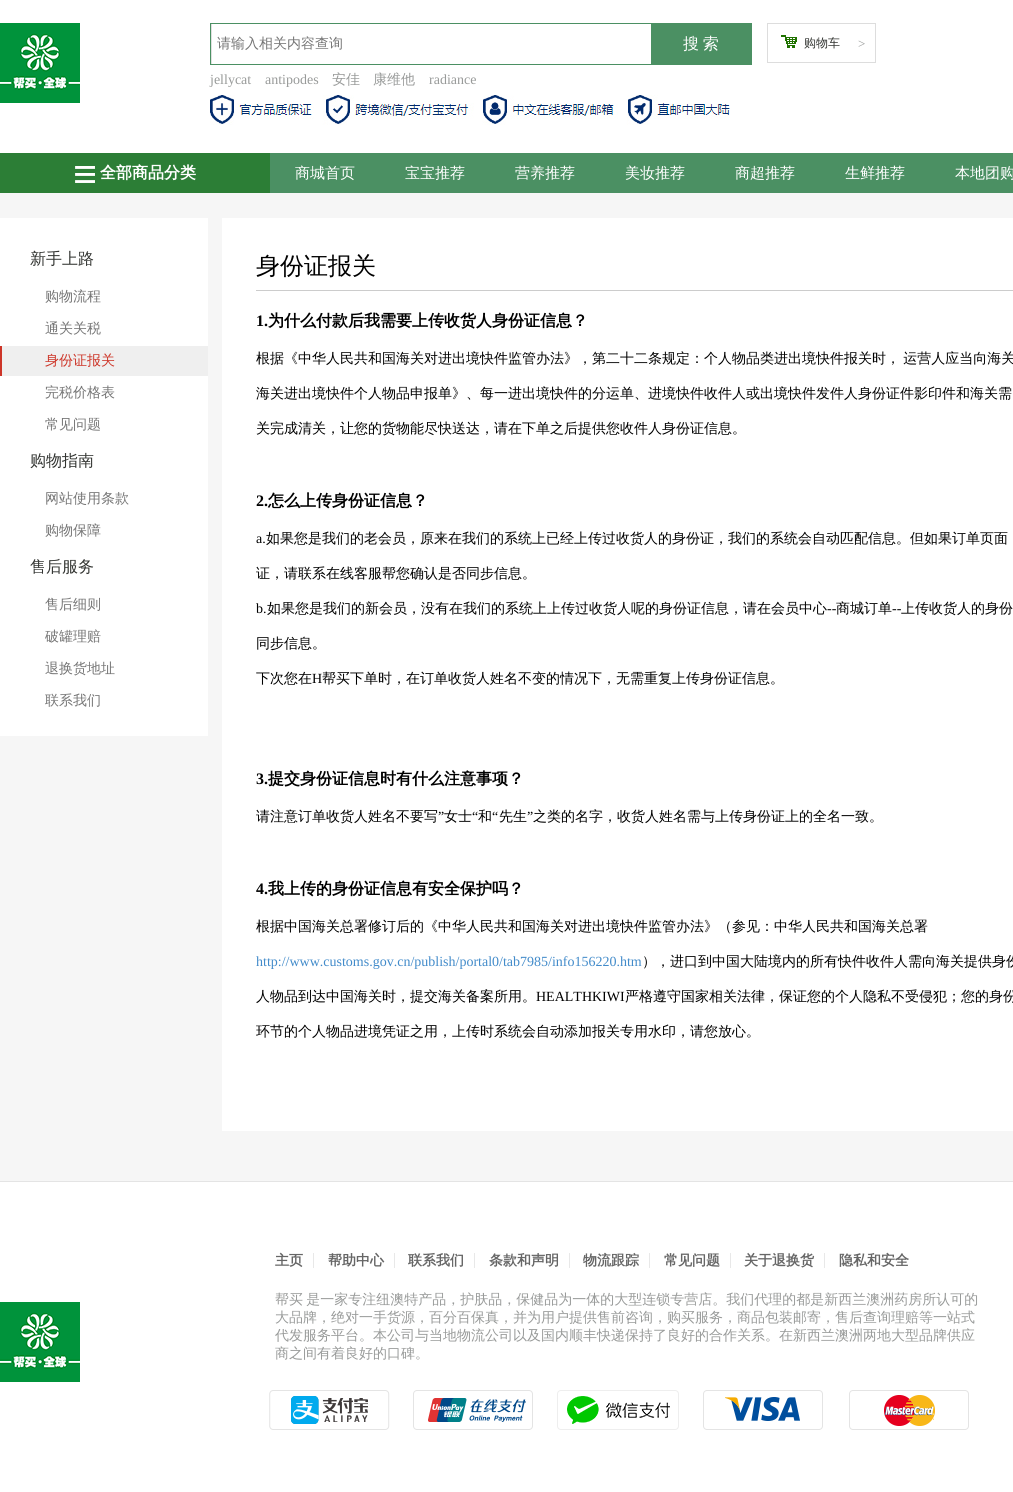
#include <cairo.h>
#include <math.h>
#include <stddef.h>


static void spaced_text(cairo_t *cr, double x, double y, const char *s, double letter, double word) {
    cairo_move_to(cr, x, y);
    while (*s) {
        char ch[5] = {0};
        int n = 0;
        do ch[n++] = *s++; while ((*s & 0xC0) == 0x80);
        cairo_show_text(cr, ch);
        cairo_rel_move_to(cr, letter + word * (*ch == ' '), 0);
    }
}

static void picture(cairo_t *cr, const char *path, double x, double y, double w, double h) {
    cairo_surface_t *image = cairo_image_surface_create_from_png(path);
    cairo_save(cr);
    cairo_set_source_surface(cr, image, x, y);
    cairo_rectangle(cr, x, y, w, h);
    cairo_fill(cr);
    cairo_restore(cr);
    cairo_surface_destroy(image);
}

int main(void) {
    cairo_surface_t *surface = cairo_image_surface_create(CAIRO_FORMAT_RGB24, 1013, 1492);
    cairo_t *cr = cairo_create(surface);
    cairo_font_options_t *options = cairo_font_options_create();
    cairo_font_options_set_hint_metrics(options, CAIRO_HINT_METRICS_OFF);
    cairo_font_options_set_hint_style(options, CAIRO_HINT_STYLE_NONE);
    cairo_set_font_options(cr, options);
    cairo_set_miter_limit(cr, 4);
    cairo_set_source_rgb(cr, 1, 1, 1);
    cairo_paint(cr);
    picture(cr, "img1.png", 0, 23, 80, 80);
    cairo_rectangle(cr, 210.5, 23.5, 541, 41);
    cairo_set_source_rgb(cr, 0.294, 0.565, 0.388);
    cairo_set_line_width(cr, 1);
    cairo_stroke(cr);
    cairo_set_source_rgb(cr, 0.882, 0.878, 0.878);
    cairo_rectangle(cr, 211, 24, 1, 40);
    cairo_fill(cr);
    cairo_select_font_face(cr, "WenQuanYi Zen Hei Medium", CAIRO_FONT_SLANT_NORMAL, CAIRO_FONT_WEIGHT_NORMAL);
    cairo_set_font_size(cr, 14);
    cairo_set_source_rgb(cr, 0.459, 0.459, 0.459);
    cairo_move_to(cr, 217, 48);
    cairo_show_text(cr, "请输入相关内容查询");
    cairo_set_source_rgb(cr, 0.294, 0.565, 0.388);
    cairo_rectangle(cr, 651, 24, 100, 40);
    cairo_fill(cr);
    cairo_set_font_size(cr, 16);
    cairo_set_source_rgb(cr, 1, 1, 1);
    spaced_text(cr, 683, 49, "搜 索", 0, -1);
    cairo_select_font_face(cr, "Liberation Serif", CAIRO_FONT_SLANT_NORMAL, CAIRO_FONT_WEIGHT_NORMAL);
    cairo_set_font_size(cr, 14);
    cairo_set_source_rgb(cr, 0.596, 0.604, 0.6);
    cairo_move_to(cr, 210, 84);
    cairo_show_text(cr, "jellycat");
    cairo_move_to(cr, 265, 84);
    cairo_show_text(cr, "antipodes");
    cairo_select_font_face(cr, "WenQuanYi Zen Hei Medium", CAIRO_FONT_SLANT_NORMAL, CAIRO_FONT_WEIGHT_NORMAL);
    cairo_move_to(cr, 332, 84);
    cairo_show_text(cr, "安佳");
    cairo_move_to(cr, 373, 84);
    cairo_show_text(cr, "康维他");
    cairo_select_font_face(cr, "Liberation Serif", CAIRO_FONT_SLANT_NORMAL, CAIRO_FONT_WEIGHT_NORMAL);
    cairo_move_to(cr, 429, 84);
    cairo_show_text(cr, "radiance");
    picture(cr, "img2.png", 210, 95, 520, 30);
    cairo_rectangle(cr, 767.5, 23.5, 108, 39);
    cairo_set_source_rgb(cr, 0.867, 0.867, 0.867);
    cairo_stroke(cr);
    picture(cr, "img3.png", 781, 35, 16, 13);
    cairo_select_font_face(cr, "WenQuanYi Zen Hei Medium", CAIRO_FONT_SLANT_NORMAL, CAIRO_FONT_WEIGHT_NORMAL);
    cairo_set_font_size(cr, 12);
    cairo_set_source_rgb(cr, 0.196, 0.204, 0.192);
    cairo_move_to(cr, 804, 47);
    cairo_show_text(cr, "购物车");
    cairo_select_font_face(cr, "Liberation Serif", CAIRO_FONT_SLANT_NORMAL, CAIRO_FONT_WEIGHT_NORMAL);
    cairo_set_font_size(cr, 13);
    cairo_set_source_rgb(cr, 0.596, 0.604, 0.6);
    cairo_move_to(cr, 858, 48);
    cairo_show_text(cr, ">");
    cairo_set_source_rgb(cr, 0.294, 0.565, 0.388);
    cairo_rectangle(cr, 270, 153, 743, 40);
    cairo_fill(cr);
    cairo_set_source_rgb(cr, 0.173, 0.494, 0.212);
    cairo_rectangle(cr, 0, 153, 270, 40);
    cairo_fill(cr);
    picture(cr, "img4.png", 75, 166, 20, 17);
    cairo_select_font_face(cr, "WenQuanYi Zen Hei", CAIRO_FONT_SLANT_NORMAL, CAIRO_FONT_WEIGHT_BOLD);
    cairo_set_font_size(cr, 16);
    cairo_set_source_rgb(cr, 1, 1, 1);
    cairo_move_to(cr, 100, 178);
    cairo_show_text(cr, "全部商品分类");
    cairo_select_font_face(cr, "WenQuanYi Zen Hei Medium", CAIRO_FONT_SLANT_NORMAL, CAIRO_FONT_WEIGHT_NORMAL);
    cairo_set_font_size(cr, 15);
    cairo_move_to(cr, 295, 178);
    cairo_show_text(cr, "商城首页");
    cairo_move_to(cr, 405, 178);
    cairo_show_text(cr, "宝宝推荐");
    cairo_move_to(cr, 515, 178);
    cairo_show_text(cr, "营养推荐");
    cairo_move_to(cr, 625, 178);
    cairo_show_text(cr, "美妆推荐");
    cairo_move_to(cr, 735, 178);
    cairo_show_text(cr, "商超推荐");
    cairo_move_to(cr, 845, 178);
    cairo_show_text(cr, "生鲜推荐");
    cairo_move_to(cr, 955, 178);
    cairo_show_text(cr, "本地团购");
    cairo_set_source_rgb(cr, 0.961, 0.961, 0.961);
    cairo_rectangle(cr, 0, 193, 1013, 988);
    cairo_fill(cr);
    cairo_set_source_rgb(cr, 1, 1, 1);
    cairo_rectangle(cr, 0, 218, 208, 518);
    cairo_fill(cr);
    cairo_set_font_size(cr, 16);
    cairo_set_source_rgb(cr, 0.196, 0.204, 0.192);
    cairo_move_to(cr, 30, 264);
    cairo_show_text(cr, "新手上路");
    cairo_set_font_size(cr, 14);
    cairo_set_source_rgb(cr, 0.459, 0.459, 0.459);
    cairo_move_to(cr, 45, 301);
    cairo_show_text(cr, "购物流程");
    cairo_move_to(cr, 45, 333);
    cairo_show_text(cr, "通关关税");
    cairo_set_source_rgb(cr, 0.937, 0.937, 0.937);
    cairo_rectangle(cr, 2, 346, 206, 30);
    cairo_fill(cr);
    cairo_set_source_rgb(cr, 0.804, 0.208, 0.157);
    cairo_rectangle(cr, 0, 346, 2, 30);
    cairo_fill(cr);
    cairo_move_to(cr, 45, 365);
    cairo_show_text(cr, "身份证报关");
    cairo_set_source_rgb(cr, 0.459, 0.459, 0.459);
    cairo_move_to(cr, 45, 397);
    cairo_show_text(cr, "完税价格表");
    cairo_move_to(cr, 45, 429);
    cairo_show_text(cr, "常见问题");
    cairo_set_font_size(cr, 16);
    cairo_set_source_rgb(cr, 0.196, 0.204, 0.192);
    cairo_move_to(cr, 30, 466);
    cairo_show_text(cr, "购物指南");
    cairo_set_font_size(cr, 14);
    cairo_set_source_rgb(cr, 0.459, 0.459, 0.459);
    cairo_move_to(cr, 45, 503);
    cairo_show_text(cr, "网站使用条款");
    cairo_move_to(cr, 45, 535);
    cairo_show_text(cr, "购物保障");
    cairo_set_font_size(cr, 16);
    cairo_set_source_rgb(cr, 0.196, 0.204, 0.192);
    cairo_move_to(cr, 30, 572);
    cairo_show_text(cr, "售后服务");
    cairo_set_font_size(cr, 14);
    cairo_set_source_rgb(cr, 0.459, 0.459, 0.459);
    cairo_move_to(cr, 45, 609);
    cairo_show_text(cr, "售后细则");
    cairo_move_to(cr, 45, 641);
    cairo_show_text(cr, "破罐理赔");
    cairo_move_to(cr, 45, 673);
    cairo_show_text(cr, "退换货地址");
    cairo_move_to(cr, 45, 705);
    cairo_show_text(cr, "联系我们");
    cairo_set_source_rgb(cr, 1, 1, 1);
    cairo_rectangle(cr, 222, 218, 791, 913);
    cairo_fill(cr);
    cairo_set_source_rgb(cr, 0.8, 0.8, 0.8);
    cairo_rectangle(cr, 256, 290, 757, 1);
    cairo_fill(cr);
    cairo_set_font_size(cr, 24);
    cairo_set_source_rgb(cr, 0, 0, 0);
    cairo_move_to(cr, 256, 274);
    cairo_show_text(cr, "身份证报关");
    cairo_select_font_face(cr, "Liberation Serif", CAIRO_FONT_SLANT_NORMAL, CAIRO_FONT_WEIGHT_BOLD);
    cairo_set_font_size(cr, 16);
    cairo_move_to(cr, 256, 326);
    cairo_show_text(cr, "1.");
    cairo_select_font_face(cr, "WenQuanYi Zen Hei", CAIRO_FONT_SLANT_NORMAL, CAIRO_FONT_WEIGHT_BOLD);
    cairo_move_to(cr, 268, 326);
    cairo_show_text(cr, "为什么付款后我需要上传收货人身份证信息？");
    cairo_select_font_face(cr, "WenQuanYi Zen Hei Medium", CAIRO_FONT_SLANT_NORMAL, CAIRO_FONT_WEIGHT_NORMAL);
    cairo_set_font_size(cr, 14);
    spaced_text(cr, 256, 363, "根据《中华人民共和国海关对进出境快件监管办法》，第二十二条规定：个人物品类进出境快件报关时， 运营人应当向海关", 0, -1);
    cairo_move_to(cr, 256, 398);
    cairo_show_text(cr, "海关进出境快件个人物品申报单》、每一进出境快件的分运单、进境快件收件人或出境快件发件人身份证件影印件和海关需");
    cairo_move_to(cr, 256, 433);
    cairo_show_text(cr, "关完成清关，让您的货物能尽快送达，请在下单之后提供您收件人身份证信息。");
    cairo_select_font_face(cr, "Liberation Serif", CAIRO_FONT_SLANT_NORMAL, CAIRO_FONT_WEIGHT_BOLD);
    cairo_set_font_size(cr, 16);
    cairo_move_to(cr, 256, 506);
    cairo_show_text(cr, "2.");
    cairo_select_font_face(cr, "WenQuanYi Zen Hei", CAIRO_FONT_SLANT_NORMAL, CAIRO_FONT_WEIGHT_BOLD);
    cairo_move_to(cr, 268, 506);
    cairo_show_text(cr, "怎么上传身份证信息？");
    cairo_select_font_face(cr, "Liberation Serif", CAIRO_FONT_SLANT_NORMAL, CAIRO_FONT_WEIGHT_NORMAL);
    cairo_set_font_size(cr, 14);
    cairo_move_to(cr, 256, 543);
    cairo_show_text(cr, "a.");
    cairo_select_font_face(cr, "WenQuanYi Zen Hei Medium", CAIRO_FONT_SLANT_NORMAL, CAIRO_FONT_WEIGHT_NORMAL);
    cairo_move_to(cr, 266, 543);
    cairo_show_text(cr, "如果您是我们的老会员，原来在我们的系统上已经上传过收货人的身份证，我们的系统会自动匹配信息。但如果订单页面");
    cairo_move_to(cr, 256, 578);
    cairo_show_text(cr, "证，请联系在线客服帮您确认是否同步信息。");
    cairo_select_font_face(cr, "Liberation Serif", CAIRO_FONT_SLANT_NORMAL, CAIRO_FONT_WEIGHT_NORMAL);
    cairo_move_to(cr, 256, 613);
    cairo_show_text(cr, "b.");
    cairo_select_font_face(cr, "WenQuanYi Zen Hei Medium", CAIRO_FONT_SLANT_NORMAL, CAIRO_FONT_WEIGHT_NORMAL);
    cairo_move_to(cr, 267, 613);
    cairo_show_text(cr, "如果您是我们的新会员，没有在我们的系统上上传过收货人呢的身份证信息，请在会员中心");
    cairo_select_font_face(cr, "Liberation Serif", CAIRO_FONT_SLANT_NORMAL, CAIRO_FONT_WEIGHT_NORMAL);
    cairo_move_to(cr, 827, 613);
    cairo_show_text(cr, "--");
    cairo_select_font_face(cr, "WenQuanYi Zen Hei Medium", CAIRO_FONT_SLANT_NORMAL, CAIRO_FONT_WEIGHT_NORMAL);
    cairo_move_to(cr, 836, 613);
    cairo_show_text(cr, "商城订单");
    cairo_select_font_face(cr, "Liberation Serif", CAIRO_FONT_SLANT_NORMAL, CAIRO_FONT_WEIGHT_NORMAL);
    cairo_move_to(cr, 892, 613);
    cairo_show_text(cr, "--");
    cairo_select_font_face(cr, "WenQuanYi Zen Hei Medium", CAIRO_FONT_SLANT_NORMAL, CAIRO_FONT_WEIGHT_NORMAL);
    cairo_move_to(cr, 901, 613);
    cairo_show_text(cr, "上传收货人的身份");
    cairo_move_to(cr, 256, 648);
    cairo_show_text(cr, "同步信息。");
    cairo_move_to(cr, 256, 683);
    cairo_show_text(cr, "下次您在");
    cairo_select_font_face(cr, "Liberation Serif", CAIRO_FONT_SLANT_NORMAL, CAIRO_FONT_WEIGHT_NORMAL);
    cairo_move_to(cr, 312, 683);
    cairo_show_text(cr, "H");
    cairo_select_font_face(cr, "WenQuanYi Zen Hei Medium", CAIRO_FONT_SLANT_NORMAL, CAIRO_FONT_WEIGHT_NORMAL);
    cairo_move_to(cr, 322, 683);
    cairo_show_text(cr, "帮买下单时，在订单收货人姓名不变的情况下，无需重复上传身份证信息。");
    cairo_select_font_face(cr, "Liberation Serif", CAIRO_FONT_SLANT_NORMAL, CAIRO_FONT_WEIGHT_BOLD);
    cairo_set_font_size(cr, 16);
    cairo_move_to(cr, 256, 784);
    cairo_show_text(cr, "3.");
    cairo_select_font_face(cr, "WenQuanYi Zen Hei", CAIRO_FONT_SLANT_NORMAL, CAIRO_FONT_WEIGHT_BOLD);
    cairo_move_to(cr, 268, 784);
    cairo_show_text(cr, "提交身份证信息时有什么注意事项？");
    cairo_select_font_face(cr, "WenQuanYi Zen Hei Medium", CAIRO_FONT_SLANT_NORMAL, CAIRO_FONT_WEIGHT_NORMAL);
    cairo_set_font_size(cr, 14);
    cairo_move_to(cr, 256, 821);
    cairo_show_text(cr, "请注意订单收货人姓名不要写");
    cairo_select_font_face(cr, "Liberation Serif", CAIRO_FONT_SLANT_NORMAL, CAIRO_FONT_WEIGHT_NORMAL);
    cairo_move_to(cr, 438, 821);
    cairo_show_text(cr, "”");
    cairo_select_font_face(cr, "WenQuanYi Zen Hei Medium", CAIRO_FONT_SLANT_NORMAL, CAIRO_FONT_WEIGHT_NORMAL);
    cairo_move_to(cr, 444, 821);
    cairo_show_text(cr, "女士");
    cairo_select_font_face(cr, "Liberation Serif", CAIRO_FONT_SLANT_NORMAL, CAIRO_FONT_WEIGHT_NORMAL);
    cairo_move_to(cr, 472, 821);
    cairo_show_text(cr, "“");
    cairo_select_font_face(cr, "WenQuanYi Zen Hei Medium", CAIRO_FONT_SLANT_NORMAL, CAIRO_FONT_WEIGHT_NORMAL);
    cairo_move_to(cr, 478, 821);
    cairo_show_text(cr, "和");
    cairo_select_font_face(cr, "Liberation Serif", CAIRO_FONT_SLANT_NORMAL, CAIRO_FONT_WEIGHT_NORMAL);
    cairo_move_to(cr, 492, 821);
    cairo_show_text(cr, "“");
    cairo_select_font_face(cr, "WenQuanYi Zen Hei Medium", CAIRO_FONT_SLANT_NORMAL, CAIRO_FONT_WEIGHT_NORMAL);
    cairo_move_to(cr, 499, 821);
    cairo_show_text(cr, "先生");
    cairo_select_font_face(cr, "Liberation Serif", CAIRO_FONT_SLANT_NORMAL, CAIRO_FONT_WEIGHT_NORMAL);
    cairo_move_to(cr, 527, 821);
    cairo_show_text(cr, "”");
    cairo_select_font_face(cr, "WenQuanYi Zen Hei Medium", CAIRO_FONT_SLANT_NORMAL, CAIRO_FONT_WEIGHT_NORMAL);
    cairo_move_to(cr, 533, 821);
    cairo_show_text(cr, "之类的名字，收货人姓名需与上传身份证上的全名一致。");
    cairo_select_font_face(cr, "Liberation Serif", CAIRO_FONT_SLANT_NORMAL, CAIRO_FONT_WEIGHT_BOLD);
    cairo_set_font_size(cr, 16);
    cairo_move_to(cr, 256, 894);
    cairo_show_text(cr, "4.");
    cairo_select_font_face(cr, "WenQuanYi Zen Hei", CAIRO_FONT_SLANT_NORMAL, CAIRO_FONT_WEIGHT_BOLD);
    cairo_move_to(cr, 268, 894);
    cairo_show_text(cr, "我上传的身份证信息有安全保护吗？");
    cairo_select_font_face(cr, "WenQuanYi Zen Hei Medium", CAIRO_FONT_SLANT_NORMAL, CAIRO_FONT_WEIGHT_NORMAL);
    cairo_set_font_size(cr, 14);
    cairo_move_to(cr, 256, 931);
    cairo_show_text(cr, "根据中国海关总署修订后的《中华人民共和国海关对进出境快件监管办法》（参见：中华人民共和国海关总署");
    cairo_select_font_face(cr, "Liberation Serif", CAIRO_FONT_SLANT_NORMAL, CAIRO_FONT_WEIGHT_NORMAL);
    cairo_set_source_rgb(cr, 0.259, 0.545, 0.792);
    cairo_move_to(cr, 256, 966);
    cairo_show_text(cr, "http://www.customs.gov.cn/publish/portal0/tab7985/info156220.htm");
    cairo_select_font_face(cr, "WenQuanYi Zen Hei Medium", CAIRO_FONT_SLANT_NORMAL, CAIRO_FONT_WEIGHT_NORMAL);
    cairo_set_source_rgb(cr, 0, 0, 0);
    cairo_move_to(cr, 642, 966);
    cairo_show_text(cr, "），进口到中国大陆境内的所有快件收件人需向海关提供身份");
    cairo_move_to(cr, 256, 1001);
    cairo_show_text(cr, "人物品到达中国海关时，提交海关备案所用。");
    cairo_select_font_face(cr, "Liberation Serif", CAIRO_FONT_SLANT_NORMAL, CAIRO_FONT_WEIGHT_NORMAL);
    cairo_move_to(cr, 536, 1001);
    cairo_show_text(cr, "HEALTHKIWI");
    cairo_select_font_face(cr, "WenQuanYi Zen Hei Medium", CAIRO_FONT_SLANT_NORMAL, CAIRO_FONT_WEIGHT_NORMAL);
    cairo_move_to(cr, 625, 1001);
    cairo_show_text(cr, "严格遵守国家相关法律，保证您的个人隐私不受侵犯；您的身份");
    cairo_move_to(cr, 256, 1036);
    cairo_show_text(cr, "环节的个人物品进境凭证之用，上传时系统会自动添加报关专用水印，请您放心。");
    cairo_set_source_rgb(cr, 0.894, 0.894, 0.894);
    cairo_rectangle(cr, 0, 1181, 1013, 1);
    cairo_fill(cr);
    picture(cr, "img1.png", 0, 1302, 80, 80);
    cairo_select_font_face(cr, "WenQuanYi Zen Hei", CAIRO_FONT_SLANT_NORMAL, CAIRO_FONT_WEIGHT_BOLD);
    cairo_set_source_rgb(cr, 0.4, 0.4, 0.4);
    cairo_move_to(cr, 275, 1265);
    cairo_show_text(cr, "主页");
    cairo_set_source_rgb(cr, 0.91, 0.91, 0.91);
    cairo_rectangle(cr, 313, 1253, 1, 15);
    cairo_fill(cr);
    cairo_set_source_rgb(cr, 0.4, 0.4, 0.4);
    cairo_move_to(cr, 328, 1265);
    cairo_show_text(cr, "帮助中心");
    cairo_set_source_rgb(cr, 0.91, 0.91, 0.91);
    cairo_rectangle(cr, 394, 1253, 1, 15);
    cairo_fill(cr);
    cairo_set_source_rgb(cr, 0.4, 0.4, 0.4);
    cairo_move_to(cr, 408, 1265);
    cairo_show_text(cr, "联系我们");
    cairo_set_source_rgb(cr, 0.91, 0.91, 0.91);
    cairo_rectangle(cr, 474, 1253, 1, 15);
    cairo_fill(cr);
    cairo_set_source_rgb(cr, 0.4, 0.4, 0.4);
    cairo_move_to(cr, 489, 1265);
    cairo_show_text(cr, "条款和声明");
    cairo_set_source_rgb(cr, 0.91, 0.91, 0.91);
    cairo_rectangle(cr, 569, 1253, 1, 15);
    cairo_fill(cr);
    cairo_set_source_rgb(cr, 0.4, 0.4, 0.4);
    cairo_move_to(cr, 583, 1265);
    cairo_show_text(cr, "物流跟踪");
    cairo_set_source_rgb(cr, 0.91, 0.91, 0.91);
    cairo_rectangle(cr, 649, 1253, 1, 15);
    cairo_fill(cr);
    cairo_set_source_rgb(cr, 0.4, 0.4, 0.4);
    cairo_move_to(cr, 664, 1265);
    cairo_show_text(cr, "常见问题");
    cairo_set_source_rgb(cr, 0.91, 0.91, 0.91);
    cairo_rectangle(cr, 730, 1253, 1, 15);
    cairo_fill(cr);
    cairo_set_source_rgb(cr, 0.4, 0.4, 0.4);
    cairo_move_to(cr, 744, 1265);
    cairo_show_text(cr, "关于退换货");
    cairo_set_source_rgb(cr, 0.91, 0.91, 0.91);
    cairo_rectangle(cr, 824, 1253, 1, 15);
    cairo_fill(cr);
    cairo_set_source_rgb(cr, 0.4, 0.4, 0.4);
    cairo_move_to(cr, 839, 1265);
    cairo_show_text(cr, "隐私和安全");
    cairo_select_font_face(cr, "WenQuanYi Zen Hei Medium", CAIRO_FONT_SLANT_NORMAL, CAIRO_FONT_WEIGHT_NORMAL);
    cairo_set_source_rgb(cr, 0.596, 0.604, 0.6);
    spaced_text(cr, 275, 1304, "帮买 是一家专注纽澳特产品，护肤品，保健品为一体的大型连锁专营店。我们代理的都是新西兰澳洲药房所认可的", 0, -1);
    cairo_move_to(cr, 275, 1322);
    cairo_show_text(cr, "大品牌，绝对一手货源，百分百保真，并为用户提供售前咨询，购买服务，商品包装邮寄，售后查询理赔等一站式");
    cairo_move_to(cr, 275, 1340);
    cairo_show_text(cr, "代发服务平台。本公司与当地物流公司以及国内顺丰快递保持了良好的合作关系。在新西兰澳洲两地大型品牌供应");
    cairo_move_to(cr, 275, 1358);
    cairo_show_text(cr, "商之间有着良好的口碑。");
    picture(cr, "img5.png", 269, 1390, 700, 40);
    cairo_surface_write_to_png(surface, "page.png");
    cairo_font_options_destroy(options);
    cairo_destroy(cr);
    cairo_surface_destroy(surface);
    return 0;
}
